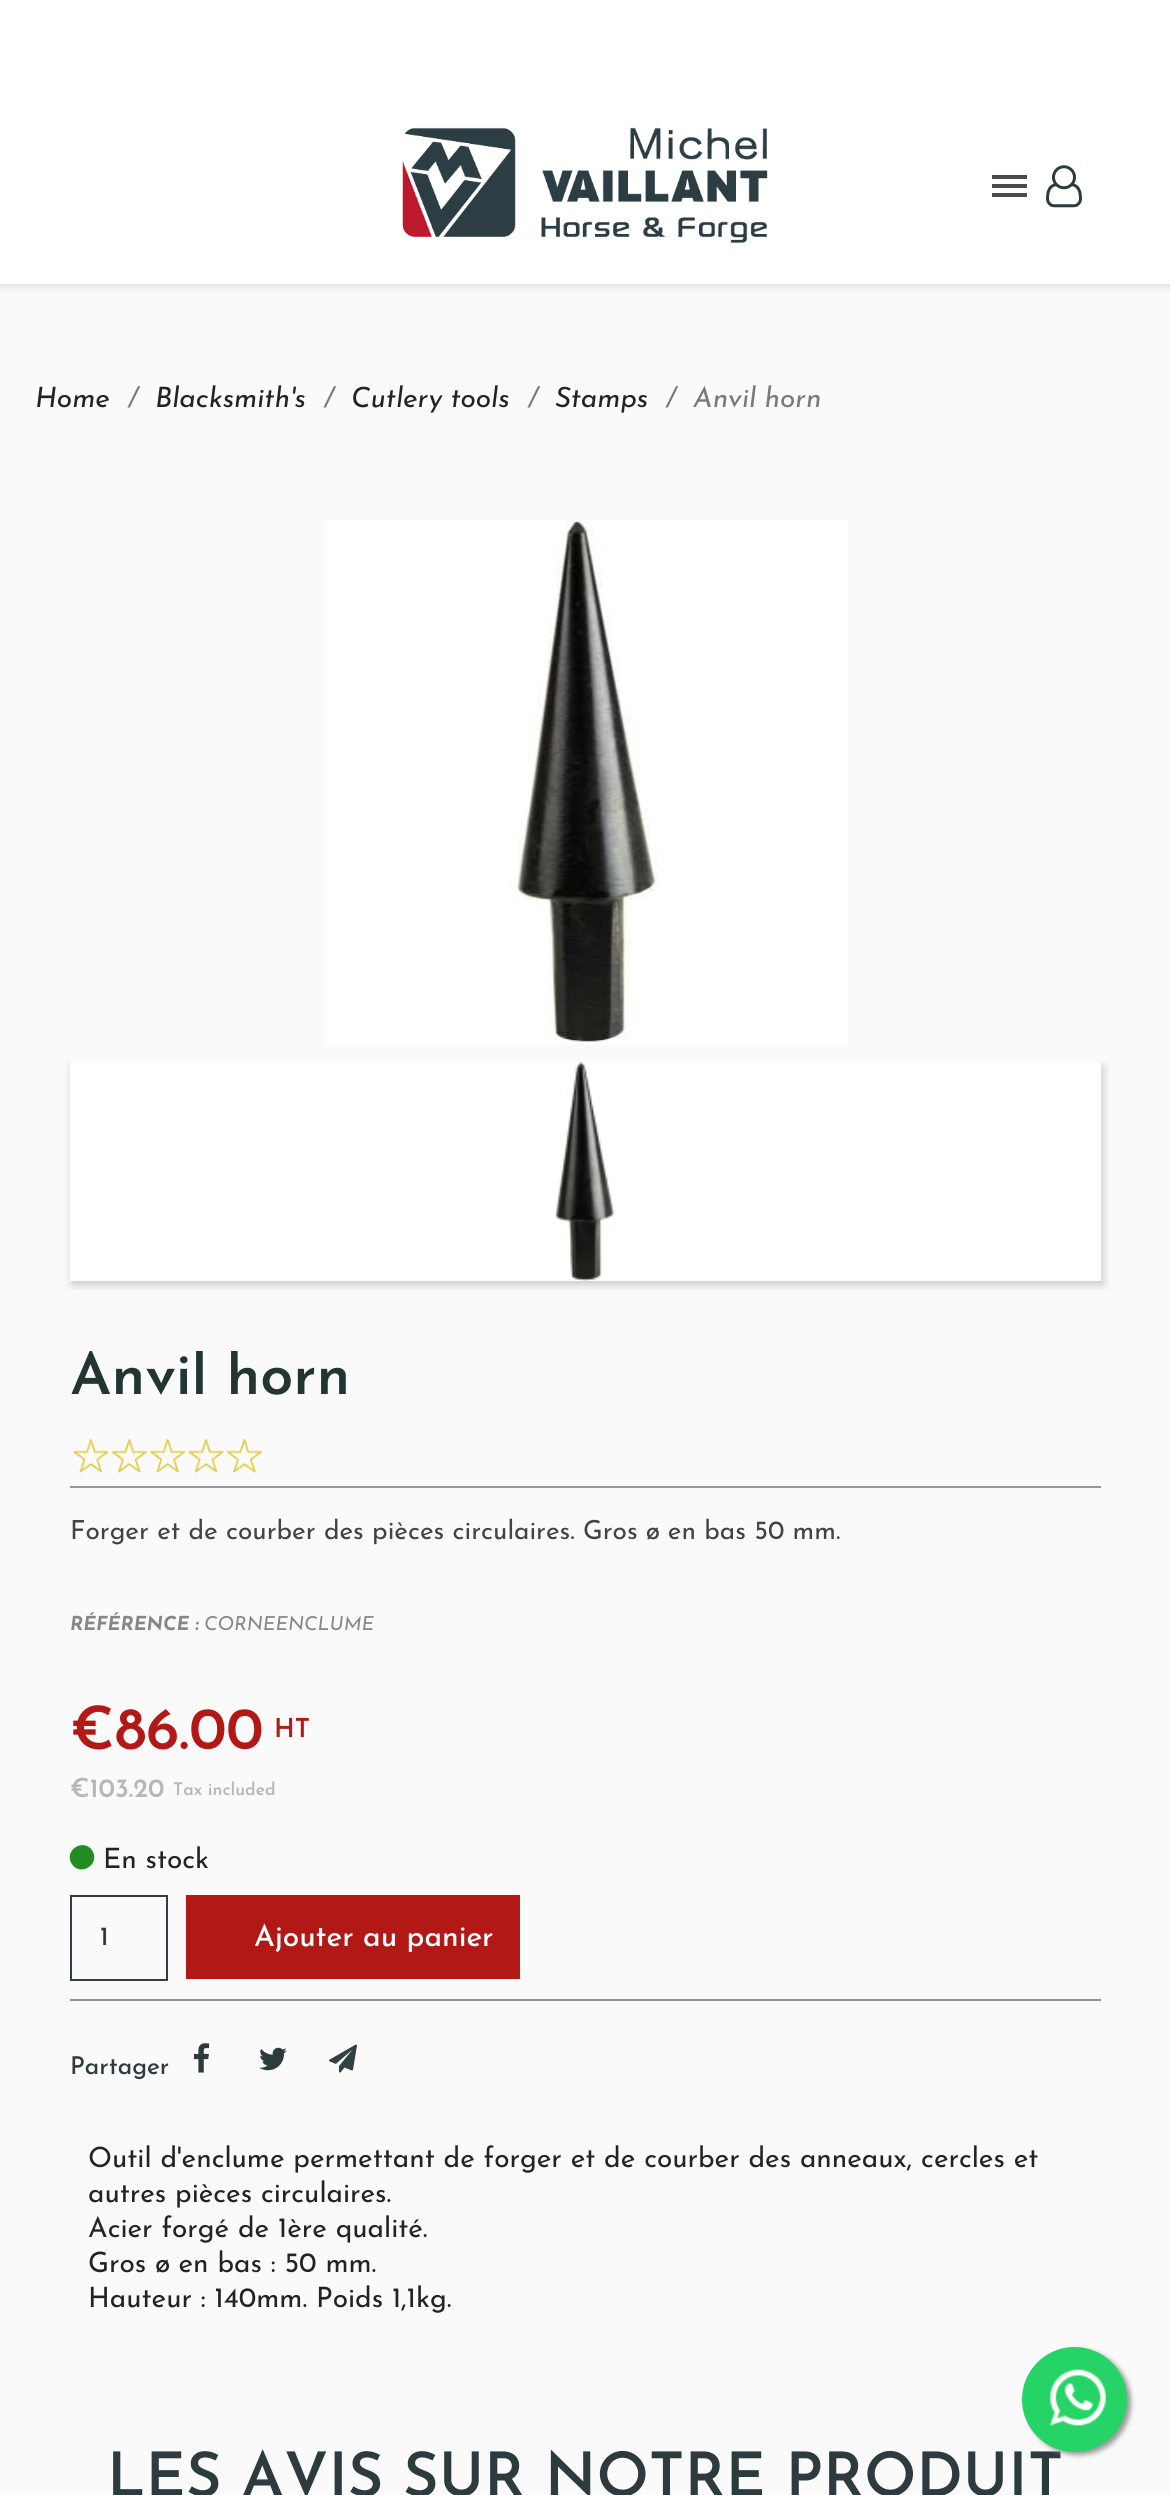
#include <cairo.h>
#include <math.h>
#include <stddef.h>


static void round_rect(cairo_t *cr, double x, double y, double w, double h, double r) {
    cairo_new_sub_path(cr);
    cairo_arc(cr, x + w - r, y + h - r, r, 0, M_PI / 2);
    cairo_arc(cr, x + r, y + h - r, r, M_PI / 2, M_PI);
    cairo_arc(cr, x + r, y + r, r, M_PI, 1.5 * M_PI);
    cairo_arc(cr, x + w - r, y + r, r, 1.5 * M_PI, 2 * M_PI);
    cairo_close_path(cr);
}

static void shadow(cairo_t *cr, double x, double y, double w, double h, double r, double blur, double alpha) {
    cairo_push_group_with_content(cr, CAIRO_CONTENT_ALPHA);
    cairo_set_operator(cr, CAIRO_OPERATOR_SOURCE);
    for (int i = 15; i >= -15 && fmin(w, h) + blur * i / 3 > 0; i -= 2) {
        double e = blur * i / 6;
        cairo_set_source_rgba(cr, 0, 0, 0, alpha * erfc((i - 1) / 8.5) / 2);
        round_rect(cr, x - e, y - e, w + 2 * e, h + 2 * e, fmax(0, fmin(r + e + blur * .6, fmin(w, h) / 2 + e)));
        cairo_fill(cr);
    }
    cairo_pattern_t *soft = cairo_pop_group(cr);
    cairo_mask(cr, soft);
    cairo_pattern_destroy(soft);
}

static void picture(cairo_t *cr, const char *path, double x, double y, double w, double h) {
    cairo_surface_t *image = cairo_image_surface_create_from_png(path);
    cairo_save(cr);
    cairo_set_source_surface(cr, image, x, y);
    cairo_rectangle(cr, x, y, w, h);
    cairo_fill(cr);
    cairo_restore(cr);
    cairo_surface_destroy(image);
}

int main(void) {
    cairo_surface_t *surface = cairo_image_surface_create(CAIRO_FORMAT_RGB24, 1170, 2495);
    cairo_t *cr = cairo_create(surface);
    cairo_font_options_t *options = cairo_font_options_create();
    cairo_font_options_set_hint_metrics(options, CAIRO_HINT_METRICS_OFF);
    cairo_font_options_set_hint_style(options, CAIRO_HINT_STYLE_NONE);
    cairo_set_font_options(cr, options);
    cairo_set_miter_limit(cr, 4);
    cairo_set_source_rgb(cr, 0.98, 0.98, 0.98);
    cairo_paint(cr);
    cairo_set_source_rgb(cr, 0, 0, 0);
    shadow(cr, 0, 4, 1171, 283, 0, 4.5, 0.11);
    cairo_set_source_rgb(cr, 1, 1, 1);
    cairo_rectangle(cr, 0, 0, 1170, 284);
    cairo_fill(cr);
    picture(cr, "img1.png", 402, 127, 366, 116);
    cairo_set_source_rgb(cr, 0.286, 0.298, 0.31);
    cairo_rectangle(cr, 992, 184, 35, 4);
    cairo_fill(cr);
    cairo_rectangle(cr, 992, 175, 35, 4);
    cairo_fill(cr);
    cairo_rectangle(cr, 992, 193, 35, 4);
    cairo_fill(cr);
    picture(cr, "img2.png", 1046, 165, 36, 43);
    cairo_select_font_face(cr, "Josefin Sans", CAIRO_FONT_SLANT_ITALIC, CAIRO_FONT_WEIGHT_NORMAL);
    cairo_set_font_size(cr, 28);
    cairo_set_source_rgb(cr, 0.137, 0.137, 0.137);
    cairo_move_to(cr, 35, 407);
    cairo_show_text(cr, "Home");
    cairo_set_source_rgb(cr, 0.478, 0.478, 0.478);
    cairo_move_to(cr, 127, 407);
    cairo_show_text(cr, "/");
    cairo_set_source_rgb(cr, 0.137, 0.137, 0.137);
    cairo_move_to(cr, 155, 407);
    cairo_show_text(cr, "Blacksmith's");
    cairo_set_source_rgb(cr, 0.478, 0.478, 0.478);
    cairo_move_to(cr, 323, 407);
    cairo_show_text(cr, "/");
    cairo_set_source_rgb(cr, 0.137, 0.137, 0.137);
    cairo_move_to(cr, 351, 407);
    cairo_show_text(cr, "Cutlery tools");
    cairo_set_source_rgb(cr, 0.478, 0.478, 0.478);
    cairo_move_to(cr, 527, 407);
    cairo_show_text(cr, "/");
    cairo_set_source_rgb(cr, 0.137, 0.137, 0.137);
    cairo_move_to(cr, 555, 407);
    cairo_show_text(cr, "Stamps");
    cairo_set_source_rgb(cr, 0.478, 0.478, 0.478);
    cairo_move_to(cr, 665, 407);
    cairo_show_text(cr, "/");
    cairo_move_to(cr, 693, 407);
    cairo_show_text(cr, "Anvil horn");
    picture(cr, "img3.png", 325, 520, 523, 525);
    cairo_save(cr);
    cairo_rectangle(cr, 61, 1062, 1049, 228);
    cairo_clip(cr);
    cairo_set_source_rgb(cr, 0, 0, 0);
    shadow(cr, 72, 1066, 1031, 219, 0, 4.5, 0.2);
    cairo_restore(cr);
    cairo_set_source_rgb(cr, 1, 1, 1);
    cairo_rectangle(cr, 70, 1062, 1031, 219);
    cairo_fill(cr);
    picture(cr, "img4.png", 554, 1062, 61, 219);
    cairo_save(cr);
    cairo_rectangle(cr, 70, 1351, 1031, 60);
    cairo_clip(cr);
    cairo_select_font_face(cr, "Josefin Sans SemiBold", CAIRO_FONT_SLANT_NORMAL, CAIRO_FONT_WEIGHT_NORMAL);
    cairo_set_font_size(cr, 59.5);
    cairo_set_source_rgb(cr, 0.133, 0.208, 0.196);
    cairo_move_to(cr, 70, 1394);
    cairo_show_text(cr, "Anvil horn");
    cairo_restore(cr);
    picture(cr, "img5.png", 73, 1439, 36, 34);
    picture(cr, "img6.png", 111, 1439, 37, 34);
    picture(cr, "img7.png", 150, 1439, 36, 34);
    picture(cr, "img8.png", 188, 1439, 36, 34);
    picture(cr, "img9.png", 226, 1439, 37, 34);
    cairo_set_source_rgb(cr, 0.588, 0.588, 0.588);
    cairo_rectangle(cr, 70, 1486, 1031, 2);
    cairo_fill(cr);
    cairo_select_font_face(cr, "Josefin Sans", CAIRO_FONT_SLANT_NORMAL, CAIRO_FONT_WEIGHT_NORMAL);
    cairo_set_font_size(cr, 26.25);
    cairo_set_source_rgb(cr, 0.263, 0.263, 0.278);
    cairo_move_to(cr, 70, 1539);
    cairo_show_text(cr, "Forger et de courber des pièces circulaires. Gros ø en bas 50 mm.");
    cairo_select_font_face(cr, "Josefin Sans", CAIRO_FONT_SLANT_ITALIC, CAIRO_FONT_WEIGHT_BOLD);
    cairo_set_font_size(cr, 19.25);
    cairo_set_source_rgb(cr, 0.529, 0.529, 0.529);
    cairo_move_to(cr, 70, 1630);
    cairo_show_text(cr, "RÉFÉRENCE :");
    cairo_select_font_face(cr, "Josefin Sans", CAIRO_FONT_SLANT_ITALIC, CAIRO_FONT_WEIGHT_NORMAL);
    cairo_move_to(cr, 204, 1630);
    cairo_show_text(cr, "CORNEENCLUME");
    cairo_select_font_face(cr, "Josefin Sans SemiBold", CAIRO_FONT_SLANT_NORMAL, CAIRO_FONT_WEIGHT_NORMAL);
    cairo_set_font_size(cr, 59.5);
    cairo_set_source_rgb(cr, 0.698, 0.094, 0.086);
    cairo_move_to(cr, 70, 1749);
    cairo_show_text(cr, "€86.00");
    cairo_set_font_size(cr, 26.25);
    cairo_move_to(cr, 274, 1737);
    cairo_show_text(cr, "HT");
    cairo_set_source_rgb(cr, 0.718, 0.718, 0.718);
    cairo_move_to(cr, 70, 1797);
    cairo_show_text(cr, "€103.20");
    cairo_set_font_size(cr, 17.5);
    cairo_move_to(cr, 173, 1795);
    cairo_show_text(cr, "Tax included");
    cairo_set_source_rgb(cr, 0.133, 0.545, 0.133);
    cairo_new_path(cr);
    cairo_move_to(cr, 92.5, 1851);
    cairo_curve_to(cr, 100.5, 1865, 79.5, 1877, 71.5, 1863.5);
    cairo_curve_to(cr, 63.5, 1849.5, 84.5, 1837.5, 92.5, 1851);
    cairo_close_path(cr);
    cairo_fill(cr);
    cairo_select_font_face(cr, "Josefin Sans", CAIRO_FONT_SLANT_NORMAL, CAIRO_FONT_WEIGHT_NORMAL);
    cairo_set_font_size(cr, 28);
    cairo_set_source_rgb(cr, 0.137, 0.137, 0.137);
    cairo_move_to(cr, 103, 1868);
    cairo_show_text(cr, "En stock");
    cairo_rectangle(cr, 71, 1896, 96, 84);
    cairo_set_source_rgb(cr, 0.196, 0.251, 0.267);
    cairo_stroke(cr);
    cairo_select_font_face(cr, "Josefin Sans Medium", CAIRO_FONT_SLANT_NORMAL, CAIRO_FONT_WEIGHT_NORMAL);
    cairo_set_font_size(cr, 26.25);
    cairo_set_source_rgb(cr, 0.216, 0.227, 0.235);
    cairo_move_to(cr, 100, 1945);
    cairo_show_text(cr, "1");
    cairo_set_source_rgb(cr, 0.698, 0.094, 0.086);
    cairo_rectangle(cr, 186, 1895, 334, 84);
    cairo_fill(cr);
    cairo_set_font_size(cr, 29.75);
    cairo_set_source_rgb(cr, 1, 1, 1);
    cairo_move_to(cr, 254, 1946);
    cairo_show_text(cr, "Ajouter au panier");
    cairo_set_source_rgb(cr, 0.588, 0.588, 0.588);
    cairo_rectangle(cr, 70, 1999, 1031, 2);
    cairo_fill(cr);
    cairo_set_font_size(cr, 24.5);
    cairo_set_source_rgb(cr, 0.176, 0.231, 0.247);
    cairo_move_to(cr, 70, 2074);
    cairo_show_text(cr, "Partager");
    picture(cr, "img10.png", 193, 2043, 17, 30);
    picture(cr, "img11.png", 259, 2047, 28, 24);
    picture(cr, "img12.png", 329, 2044, 28, 29);
    cairo_select_font_face(cr, "Josefin Sans", CAIRO_FONT_SLANT_NORMAL, CAIRO_FONT_WEIGHT_NORMAL);
    cairo_set_font_size(cr, 28);
    cairo_set_source_rgb(cr, 0.137, 0.137, 0.137);
    cairo_move_to(cr, 88, 2167);
    cairo_show_text(cr, "Outil d'enclume permettant de forger et de courber des anneaux, cercles et");
    cairo_move_to(cr, 88, 2202);
    cairo_show_text(cr, "autres pièces circulaires.");
    cairo_move_to(cr, 88, 2237);
    cairo_show_text(cr, "Acier forgé de 1ère qualité.");
    cairo_move_to(cr, 88, 2272);
    cairo_show_text(cr, "Gros ø en bas : 50 mm.");
    cairo_move_to(cr, 88, 2307);
    cairo_show_text(cr, "Hauteur : 140mm. Poids 1,1kg.");
    cairo_select_font_face(cr, "Josefin Sans SemiBold", CAIRO_FONT_SLANT_NORMAL, CAIRO_FONT_WEIGHT_NORMAL);
    cairo_set_font_size(cr, 61.25);
    cairo_set_source_rgb(cr, 0.176, 0.231, 0.247);
    cairo_move_to(cr, 107, 2496);
    cairo_show_text(cr, "LES AVIS SUR NOTRE PRODUIT");
    cairo_set_source_rgb(cr, 0.6, 0.6, 0.6);
    shadow(cr, 1026, 2350, 105, 105, 52.5, 2.5, 1);
    cairo_set_source_rgb(cr, 0.145, 0.827, 0.4);
    cairo_arc(cr, 1074.5, 2399.5, 52.5, 0, 2 * M_PI);
    cairo_fill(cr);
    picture(cr, "img13.png", 1050, 2369, 56, 57);
    cairo_surface_write_to_png(surface, "page.png");
    cairo_font_options_destroy(options);
    cairo_destroy(cr);
    cairo_surface_destroy(surface);
    return 0;
}
